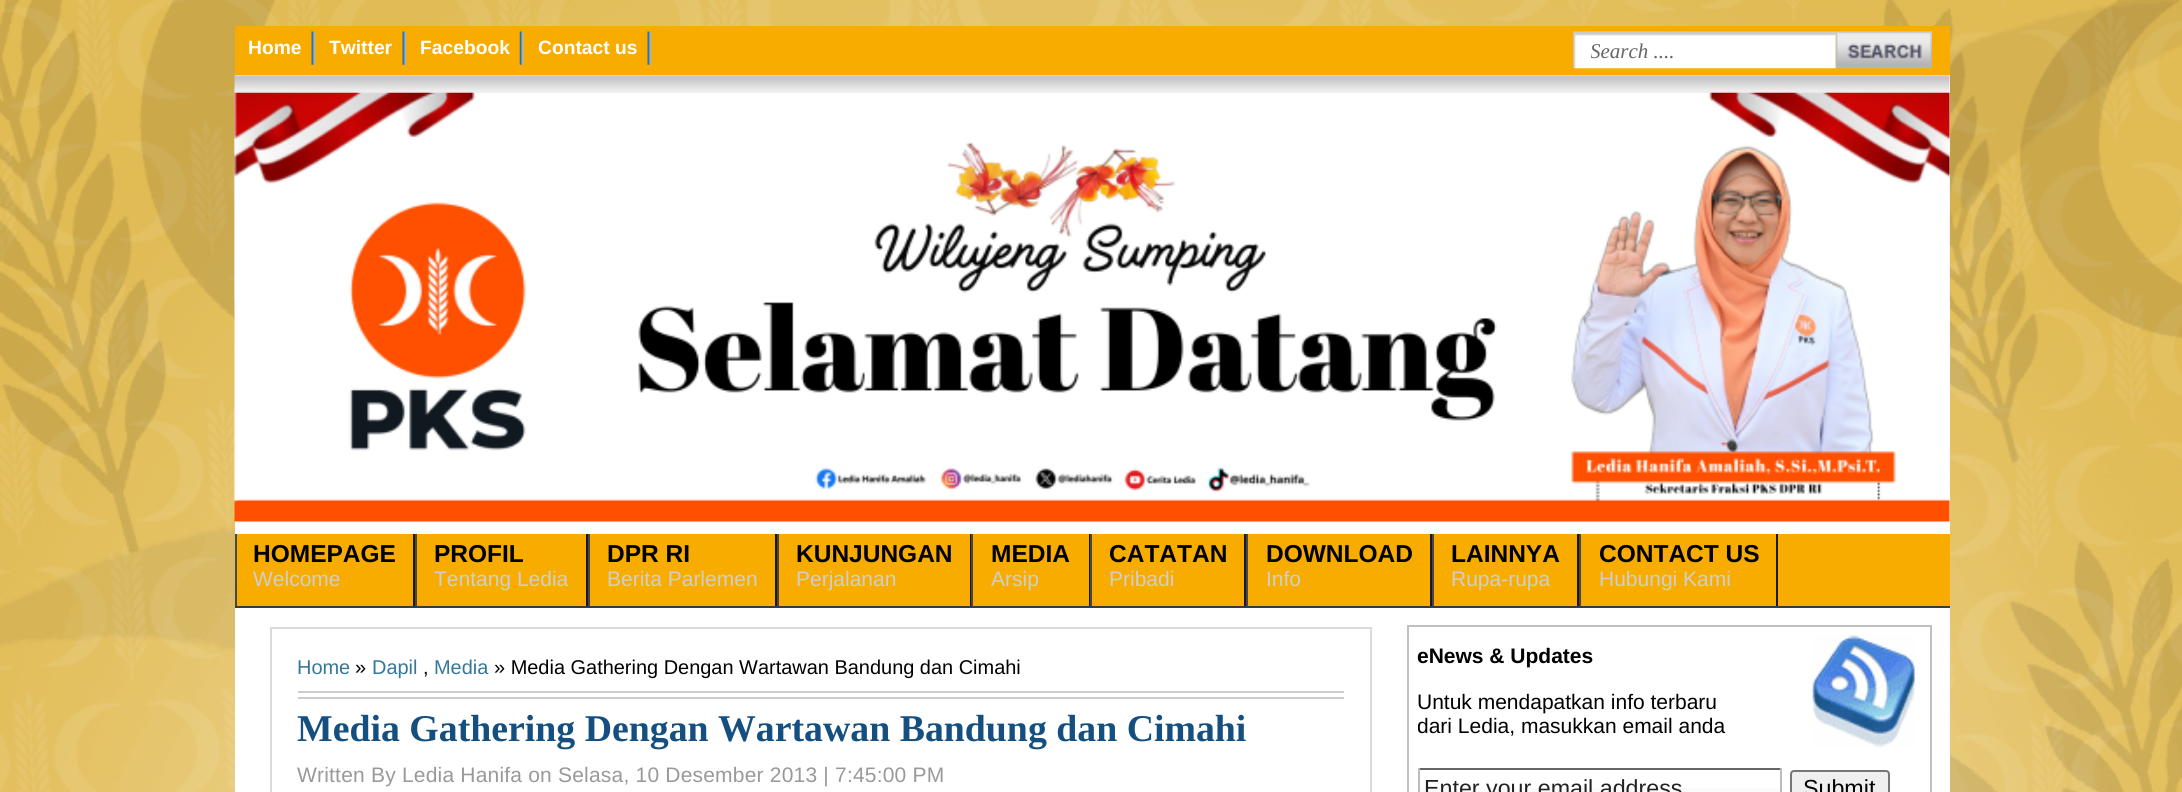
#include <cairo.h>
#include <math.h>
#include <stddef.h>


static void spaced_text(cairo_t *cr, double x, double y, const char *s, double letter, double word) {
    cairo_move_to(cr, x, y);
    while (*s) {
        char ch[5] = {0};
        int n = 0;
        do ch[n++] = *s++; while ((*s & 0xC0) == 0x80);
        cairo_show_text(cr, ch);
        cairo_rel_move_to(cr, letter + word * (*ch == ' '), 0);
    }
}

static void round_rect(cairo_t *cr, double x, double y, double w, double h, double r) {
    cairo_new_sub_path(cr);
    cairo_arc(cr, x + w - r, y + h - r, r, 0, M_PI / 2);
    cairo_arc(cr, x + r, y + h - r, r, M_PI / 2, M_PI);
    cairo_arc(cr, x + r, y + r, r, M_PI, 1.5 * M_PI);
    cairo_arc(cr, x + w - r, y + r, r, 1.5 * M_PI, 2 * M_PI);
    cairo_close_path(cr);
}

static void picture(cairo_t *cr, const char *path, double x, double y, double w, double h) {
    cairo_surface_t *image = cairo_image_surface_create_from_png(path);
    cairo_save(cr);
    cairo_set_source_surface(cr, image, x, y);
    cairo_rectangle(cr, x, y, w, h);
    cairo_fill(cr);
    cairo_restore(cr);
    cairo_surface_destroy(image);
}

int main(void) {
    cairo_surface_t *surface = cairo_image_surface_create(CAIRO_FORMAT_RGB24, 2182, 792);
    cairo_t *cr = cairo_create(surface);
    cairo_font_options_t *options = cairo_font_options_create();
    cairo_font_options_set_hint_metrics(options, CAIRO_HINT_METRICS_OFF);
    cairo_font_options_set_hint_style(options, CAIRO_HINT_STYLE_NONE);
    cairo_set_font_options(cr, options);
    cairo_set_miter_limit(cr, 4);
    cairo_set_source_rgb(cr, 1, 1, 1);
    cairo_paint(cr);
    picture(cr, "img1.png", 0, 0, 2182, 792);
    cairo_set_source_rgb(cr, 1, 1, 1);
    cairo_rectangle(cr, 235, 75, 1715, 717);
    cairo_fill(cr);
    cairo_set_source_rgb(cr, 0.973, 0.675, 0);
    cairo_rectangle(cr, 235, 26, 1715, 49);
    cairo_fill(cr);
    picture(cr, "img2.png", 311, 31, 4, 34);
    cairo_select_font_face(cr, "Liberation Sans", CAIRO_FONT_SLANT_NORMAL, CAIRO_FONT_WEIGHT_BOLD);
    cairo_set_font_size(cr, 19.25);
    cairo_set_source_rgb(cr, 1, 1, 1);
    cairo_move_to(cr, 248, 54);
    cairo_show_text(cr, "Home");
    picture(cr, "img2.png", 402, 31, 4, 34);
    cairo_move_to(cr, 329, 54);
    cairo_show_text(cr, "Twitter");
    picture(cr, "img3.png", 519, 31, 5, 34);
    cairo_move_to(cr, 420, 54);
    cairo_show_text(cr, "Facebook");
    picture(cr, "img2.png", 647, 31, 4, 34);
    cairo_move_to(cr, 538, 54);
    cairo_show_text(cr, "Contact us");
    picture(cr, "img4.png", 1573, 31, 263, 38);
    cairo_save(cr);
    cairo_rectangle(cr, 1591, 39, 227, 26);
    cairo_clip(cr);
    cairo_select_font_face(cr, "Liberation Serif", CAIRO_FONT_SLANT_ITALIC, CAIRO_FONT_WEIGHT_NORMAL);
    cairo_set_font_size(cr, 21);
    cairo_set_source_rgb(cr, 0.4, 0.4, 0.4);
    cairo_move_to(cr, 1590, 58);
    cairo_show_text(cr, "Search ....");
    cairo_restore(cr);
    picture(cr, "img5.png", 1835, 31, 97, 38);
    picture(cr, "img6.png", 234, 75, 1716, 226);
    picture(cr, "img7.png", 234, 92, 1716, 430);
    cairo_set_source_rgb(cr, 0.973, 0.675, 0);
    cairo_rectangle(cr, 237, 534, 1713, 72);
    cairo_fill(cr);
    cairo_set_source_rgb(cr, 0.098, 0.098, 0.098);
    cairo_rectangle(cr, 413, 534, 2, 72);
    cairo_fill(cr);
    cairo_set_source_rgb(cr, 0.282, 0.278, 0.278);
    cairo_rectangle(cr, 235, 534, 2, 72);
    cairo_fill(cr);
    cairo_set_font_size(cr, 24.5);
    cairo_set_source_rgb(cr, 0, 0, 0);
    cairo_move_to(cr, 253, 562);
    cairo_show_text(cr, "HOMEPAGE");
    cairo_select_font_face(cr, "Liberation Sans", CAIRO_FONT_SLANT_NORMAL, CAIRO_FONT_WEIGHT_NORMAL);
    cairo_set_font_size(cr, 21);
    cairo_set_source_rgb(cr, 0.808, 0.808, 0.812);
    cairo_move_to(cr, 253, 586);
    cairo_show_text(cr, "Welcome");
    cairo_set_source_rgb(cr, 0.098, 0.098, 0.098);
    cairo_rectangle(cr, 586, 534, 2, 72);
    cairo_fill(cr);
    cairo_set_source_rgb(cr, 0.282, 0.278, 0.278);
    cairo_rectangle(cr, 415, 534, 2, 72);
    cairo_fill(cr);
    cairo_select_font_face(cr, "Liberation Sans", CAIRO_FONT_SLANT_NORMAL, CAIRO_FONT_WEIGHT_BOLD);
    cairo_set_font_size(cr, 24.5);
    cairo_set_source_rgb(cr, 0, 0, 0);
    cairo_move_to(cr, 434, 562);
    cairo_show_text(cr, "PROFIL");
    cairo_select_font_face(cr, "Liberation Sans", CAIRO_FONT_SLANT_NORMAL, CAIRO_FONT_WEIGHT_NORMAL);
    cairo_set_font_size(cr, 21);
    cairo_set_source_rgb(cr, 0.808, 0.808, 0.812);
    cairo_move_to(cr, 434, 586);
    cairo_show_text(cr, "Tentang Ledia");
    cairo_set_source_rgb(cr, 0.098, 0.098, 0.098);
    cairo_rectangle(cr, 775, 534, 2, 72);
    cairo_fill(cr);
    cairo_set_source_rgb(cr, 0.282, 0.278, 0.278);
    cairo_rectangle(cr, 588, 534, 2, 72);
    cairo_fill(cr);
    cairo_select_font_face(cr, "Liberation Sans", CAIRO_FONT_SLANT_NORMAL, CAIRO_FONT_WEIGHT_BOLD);
    cairo_set_font_size(cr, 24.5);
    cairo_set_source_rgb(cr, 0, 0, 0);
    cairo_move_to(cr, 607, 562);
    cairo_show_text(cr, "DPR RI");
    cairo_select_font_face(cr, "Liberation Sans", CAIRO_FONT_SLANT_NORMAL, CAIRO_FONT_WEIGHT_NORMAL);
    cairo_set_font_size(cr, 21);
    cairo_set_source_rgb(cr, 0.808, 0.808, 0.812);
    cairo_move_to(cr, 607, 586);
    cairo_show_text(cr, "Berita Parlemen");
    cairo_set_source_rgb(cr, 0.098, 0.098, 0.098);
    cairo_rectangle(cr, 970, 534, 1, 72);
    cairo_fill(cr);
    cairo_set_source_rgb(cr, 0.282, 0.278, 0.278);
    cairo_rectangle(cr, 777, 534, 2, 72);
    cairo_fill(cr);
    cairo_select_font_face(cr, "Liberation Sans", CAIRO_FONT_SLANT_NORMAL, CAIRO_FONT_WEIGHT_BOLD);
    cairo_set_font_size(cr, 24.5);
    cairo_set_source_rgb(cr, 0, 0, 0);
    cairo_move_to(cr, 796, 562);
    cairo_show_text(cr, "KUNJUNGAN");
    cairo_select_font_face(cr, "Liberation Sans", CAIRO_FONT_SLANT_NORMAL, CAIRO_FONT_WEIGHT_NORMAL);
    cairo_set_font_size(cr, 21);
    cairo_set_source_rgb(cr, 0.808, 0.808, 0.812);
    cairo_move_to(cr, 796, 586);
    cairo_show_text(cr, "Perjalanan");
    cairo_set_source_rgb(cr, 0.098, 0.098, 0.098);
    cairo_rectangle(cr, 1089, 534, 1, 72);
    cairo_fill(cr);
    cairo_set_source_rgb(cr, 0.282, 0.278, 0.278);
    cairo_rectangle(cr, 971, 534, 2, 72);
    cairo_fill(cr);
    cairo_select_font_face(cr, "Liberation Sans", CAIRO_FONT_SLANT_NORMAL, CAIRO_FONT_WEIGHT_BOLD);
    cairo_set_font_size(cr, 24.5);
    cairo_set_source_rgb(cr, 0, 0, 0);
    cairo_move_to(cr, 991, 562);
    cairo_show_text(cr, "MEDIA");
    cairo_select_font_face(cr, "Liberation Sans", CAIRO_FONT_SLANT_NORMAL, CAIRO_FONT_WEIGHT_NORMAL);
    cairo_set_font_size(cr, 21);
    cairo_set_source_rgb(cr, 0.808, 0.808, 0.812);
    cairo_move_to(cr, 991, 586);
    cairo_show_text(cr, "Arsip");
    cairo_set_source_rgb(cr, 0.098, 0.098, 0.098);
    cairo_rectangle(cr, 1244, 534, 2, 72);
    cairo_fill(cr);
    cairo_set_source_rgb(cr, 0.282, 0.278, 0.278);
    cairo_rectangle(cr, 1090, 534, 2, 72);
    cairo_fill(cr);
    cairo_select_font_face(cr, "Liberation Sans", CAIRO_FONT_SLANT_NORMAL, CAIRO_FONT_WEIGHT_BOLD);
    cairo_set_font_size(cr, 24.5);
    cairo_set_source_rgb(cr, 0, 0, 0);
    cairo_move_to(cr, 1109, 562);
    cairo_show_text(cr, "CATATAN");
    cairo_select_font_face(cr, "Liberation Sans", CAIRO_FONT_SLANT_NORMAL, CAIRO_FONT_WEIGHT_NORMAL);
    cairo_set_font_size(cr, 21);
    cairo_set_source_rgb(cr, 0.808, 0.808, 0.812);
    cairo_move_to(cr, 1109, 586);
    cairo_show_text(cr, "Pribadi");
    cairo_set_source_rgb(cr, 0.098, 0.098, 0.098);
    cairo_rectangle(cr, 1430, 534, 2, 72);
    cairo_fill(cr);
    cairo_set_source_rgb(cr, 0.282, 0.278, 0.278);
    cairo_rectangle(cr, 1246, 534, 2, 72);
    cairo_fill(cr);
    cairo_select_font_face(cr, "Liberation Sans", CAIRO_FONT_SLANT_NORMAL, CAIRO_FONT_WEIGHT_BOLD);
    cairo_set_font_size(cr, 24.5);
    cairo_set_source_rgb(cr, 0, 0, 0);
    cairo_move_to(cr, 1266, 562);
    cairo_show_text(cr, "DOWNLOAD");
    cairo_select_font_face(cr, "Liberation Sans", CAIRO_FONT_SLANT_NORMAL, CAIRO_FONT_WEIGHT_NORMAL);
    cairo_set_font_size(cr, 21);
    cairo_set_source_rgb(cr, 0.808, 0.808, 0.812);
    cairo_move_to(cr, 1266, 586);
    cairo_show_text(cr, "Info");
    cairo_set_source_rgb(cr, 0.098, 0.098, 0.098);
    cairo_rectangle(cr, 1577, 534, 2, 72);
    cairo_fill(cr);
    cairo_set_source_rgb(cr, 0.282, 0.278, 0.278);
    cairo_rectangle(cr, 1432, 534, 2, 72);
    cairo_fill(cr);
    cairo_select_font_face(cr, "Liberation Sans", CAIRO_FONT_SLANT_NORMAL, CAIRO_FONT_WEIGHT_BOLD);
    cairo_set_font_size(cr, 24.5);
    cairo_set_source_rgb(cr, 0, 0, 0);
    cairo_move_to(cr, 1451, 562);
    cairo_show_text(cr, "LAINNYA");
    cairo_select_font_face(cr, "Liberation Sans", CAIRO_FONT_SLANT_NORMAL, CAIRO_FONT_WEIGHT_NORMAL);
    cairo_set_font_size(cr, 21);
    cairo_set_source_rgb(cr, 0.808, 0.808, 0.812);
    cairo_move_to(cr, 1451, 586);
    cairo_show_text(cr, "Rupa-rupa");
    cairo_set_source_rgb(cr, 0.098, 0.098, 0.098);
    cairo_rectangle(cr, 1776, 534, 2, 72);
    cairo_fill(cr);
    cairo_set_source_rgb(cr, 0.282, 0.278, 0.278);
    cairo_rectangle(cr, 1579, 534, 2, 72);
    cairo_fill(cr);
    cairo_select_font_face(cr, "Liberation Sans", CAIRO_FONT_SLANT_NORMAL, CAIRO_FONT_WEIGHT_BOLD);
    cairo_set_font_size(cr, 24.5);
    cairo_set_source_rgb(cr, 0, 0, 0);
    cairo_move_to(cr, 1599, 562);
    cairo_show_text(cr, "CONTACT US");
    cairo_select_font_face(cr, "Liberation Sans", CAIRO_FONT_SLANT_NORMAL, CAIRO_FONT_WEIGHT_NORMAL);
    cairo_set_font_size(cr, 21);
    cairo_set_source_rgb(cr, 0.808, 0.808, 0.812);
    cairo_move_to(cr, 1599, 586);
    cairo_show_text(cr, "Hubungi Kami");
    cairo_set_source_rgb(cr, 0.231, 0.231, 0.231);
    cairo_rectangle(cr, 235, 606, 1715, 2);
    cairo_fill(cr);
    cairo_rectangle(cr, 271, 628, 1100, 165);
    cairo_set_source_rgb(cr, 0.863, 0.851, 0.851);
    cairo_stroke(cr);
    cairo_set_source_rgb(cr, 0.8, 0.8, 0.8);
    cairo_rectangle(cr, 298, 691, 1046, 2);
    cairo_fill(cr);
    cairo_rectangle(cr, 298, 697, 1046, 2);
    cairo_fill(cr);
    cairo_set_font_size(cr, 19.95);
    cairo_set_source_rgb(cr, 0.208, 0.467, 0.596);
    cairo_move_to(cr, 297, 674);
    cairo_show_text(cr, "Home");
    cairo_set_source_rgb(cr, 0, 0, 0);
    cairo_move_to(cr, 355, 674);
    cairo_show_text(cr, "»");
    cairo_set_source_rgb(cr, 0.208, 0.467, 0.596);
    cairo_move_to(cr, 372, 674);
    cairo_show_text(cr, "Dapil");
    cairo_move_to(cr, 434, 674);
    cairo_show_text(cr, "Media");
    cairo_set_source_rgb(cr, 0, 0, 0);
    cairo_move_to(cr, 494, 674);
    cairo_show_text(cr, "» Media Gathering Dengan Wartawan Bandung dan Cimahi");
    cairo_move_to(cr, 423, 674);
    cairo_show_text(cr, ",");
    cairo_select_font_face(cr, "Liberation Serif", CAIRO_FONT_SLANT_NORMAL, CAIRO_FONT_WEIGHT_BOLD);
    cairo_set_font_size(cr, 37.8);
    cairo_set_source_rgb(cr, 0.082, 0.31, 0.502);
    cairo_move_to(cr, 297, 741);
    cairo_show_text(cr, "Media Gathering Dengan Wartawan Bandung dan Cimahi");
    cairo_select_font_face(cr, "Liberation Sans", CAIRO_FONT_SLANT_NORMAL, CAIRO_FONT_WEIGHT_NORMAL);
    cairo_set_font_size(cr, 21);
    cairo_set_source_rgb(cr, 0.6, 0.6, 0.6);
    spaced_text(cr, 297, 782, "Written By Ledia Hanifa on Selasa, 10 Desember 2013 | 7:45:00 PM", 0.2, 0);
    picture(cr, "img8.png", 1812, 635, 103, 113);
    cairo_rectangle(cr, 1408, 626, 523, 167);
    cairo_set_source_rgb(cr, 0.753, 0.753, 0.753);
    cairo_stroke(cr);
    cairo_select_font_face(cr, "Liberation Sans", CAIRO_FONT_SLANT_NORMAL, CAIRO_FONT_WEIGHT_BOLD);
    cairo_set_source_rgb(cr, 0, 0, 0);
    cairo_move_to(cr, 1417, 663);
    cairo_show_text(cr, "eNews & Updates");
    cairo_select_font_face(cr, "Liberation Sans", CAIRO_FONT_SLANT_NORMAL, CAIRO_FONT_WEIGHT_NORMAL);
    cairo_move_to(cr, 1417, 709);
    cairo_show_text(cr, "Untuk mendapatkan info terbaru");
    cairo_save(cr);
    cairo_rectangle(cr, 1418, 669, 504, 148);
    cairo_clip(cr);
    cairo_move_to(cr, 1417, 733);
    cairo_show_text(cr, "dari Ledia, masukkan email anda");
    cairo_restore(cr);
    cairo_set_source_rgb(cr, 0.98, 0.98, 0.98);
    cairo_rectangle(cr, 1418, 788, 363, 4);
    cairo_fill(cr);
    cairo_set_source_rgb(cr, 0.4, 0.4, 0.4);
    cairo_rectangle(cr, 1418, 768, 364, 2);
    cairo_fill(cr);
    cairo_set_source_rgb(cr, 0.733, 0.733, 0.733);
    cairo_rectangle(cr, 1780, 768, 2, 24);
    cairo_fill(cr);
    cairo_rectangle(cr, 1418, 768, 2, 24);
    cairo_fill(cr);
    cairo_set_font_size(cr, 23.25);
    cairo_set_source_rgb(cr, 0.133, 0.133, 0.133);
    cairo_move_to(cr, 1424, 796);
    cairo_show_text(cr, "Enter your email address");
    cairo_set_source_rgb(cr, 0.937, 0.937, 0.937);
    round_rect(cr, 1791, 771, 98, 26, 3);
    cairo_fill_preserve(cr);
    cairo_set_source_rgb(cr, 0.463, 0.463, 0.463);
    cairo_stroke(cr);
    cairo_set_source_rgb(cr, 0, 0, 0);
    cairo_move_to(cr, 1803, 796);
    cairo_show_text(cr, "Submit");
    cairo_surface_write_to_png(surface, "page.png");
    cairo_font_options_destroy(options);
    cairo_destroy(cr);
    cairo_surface_destroy(surface);
    return 0;
}
